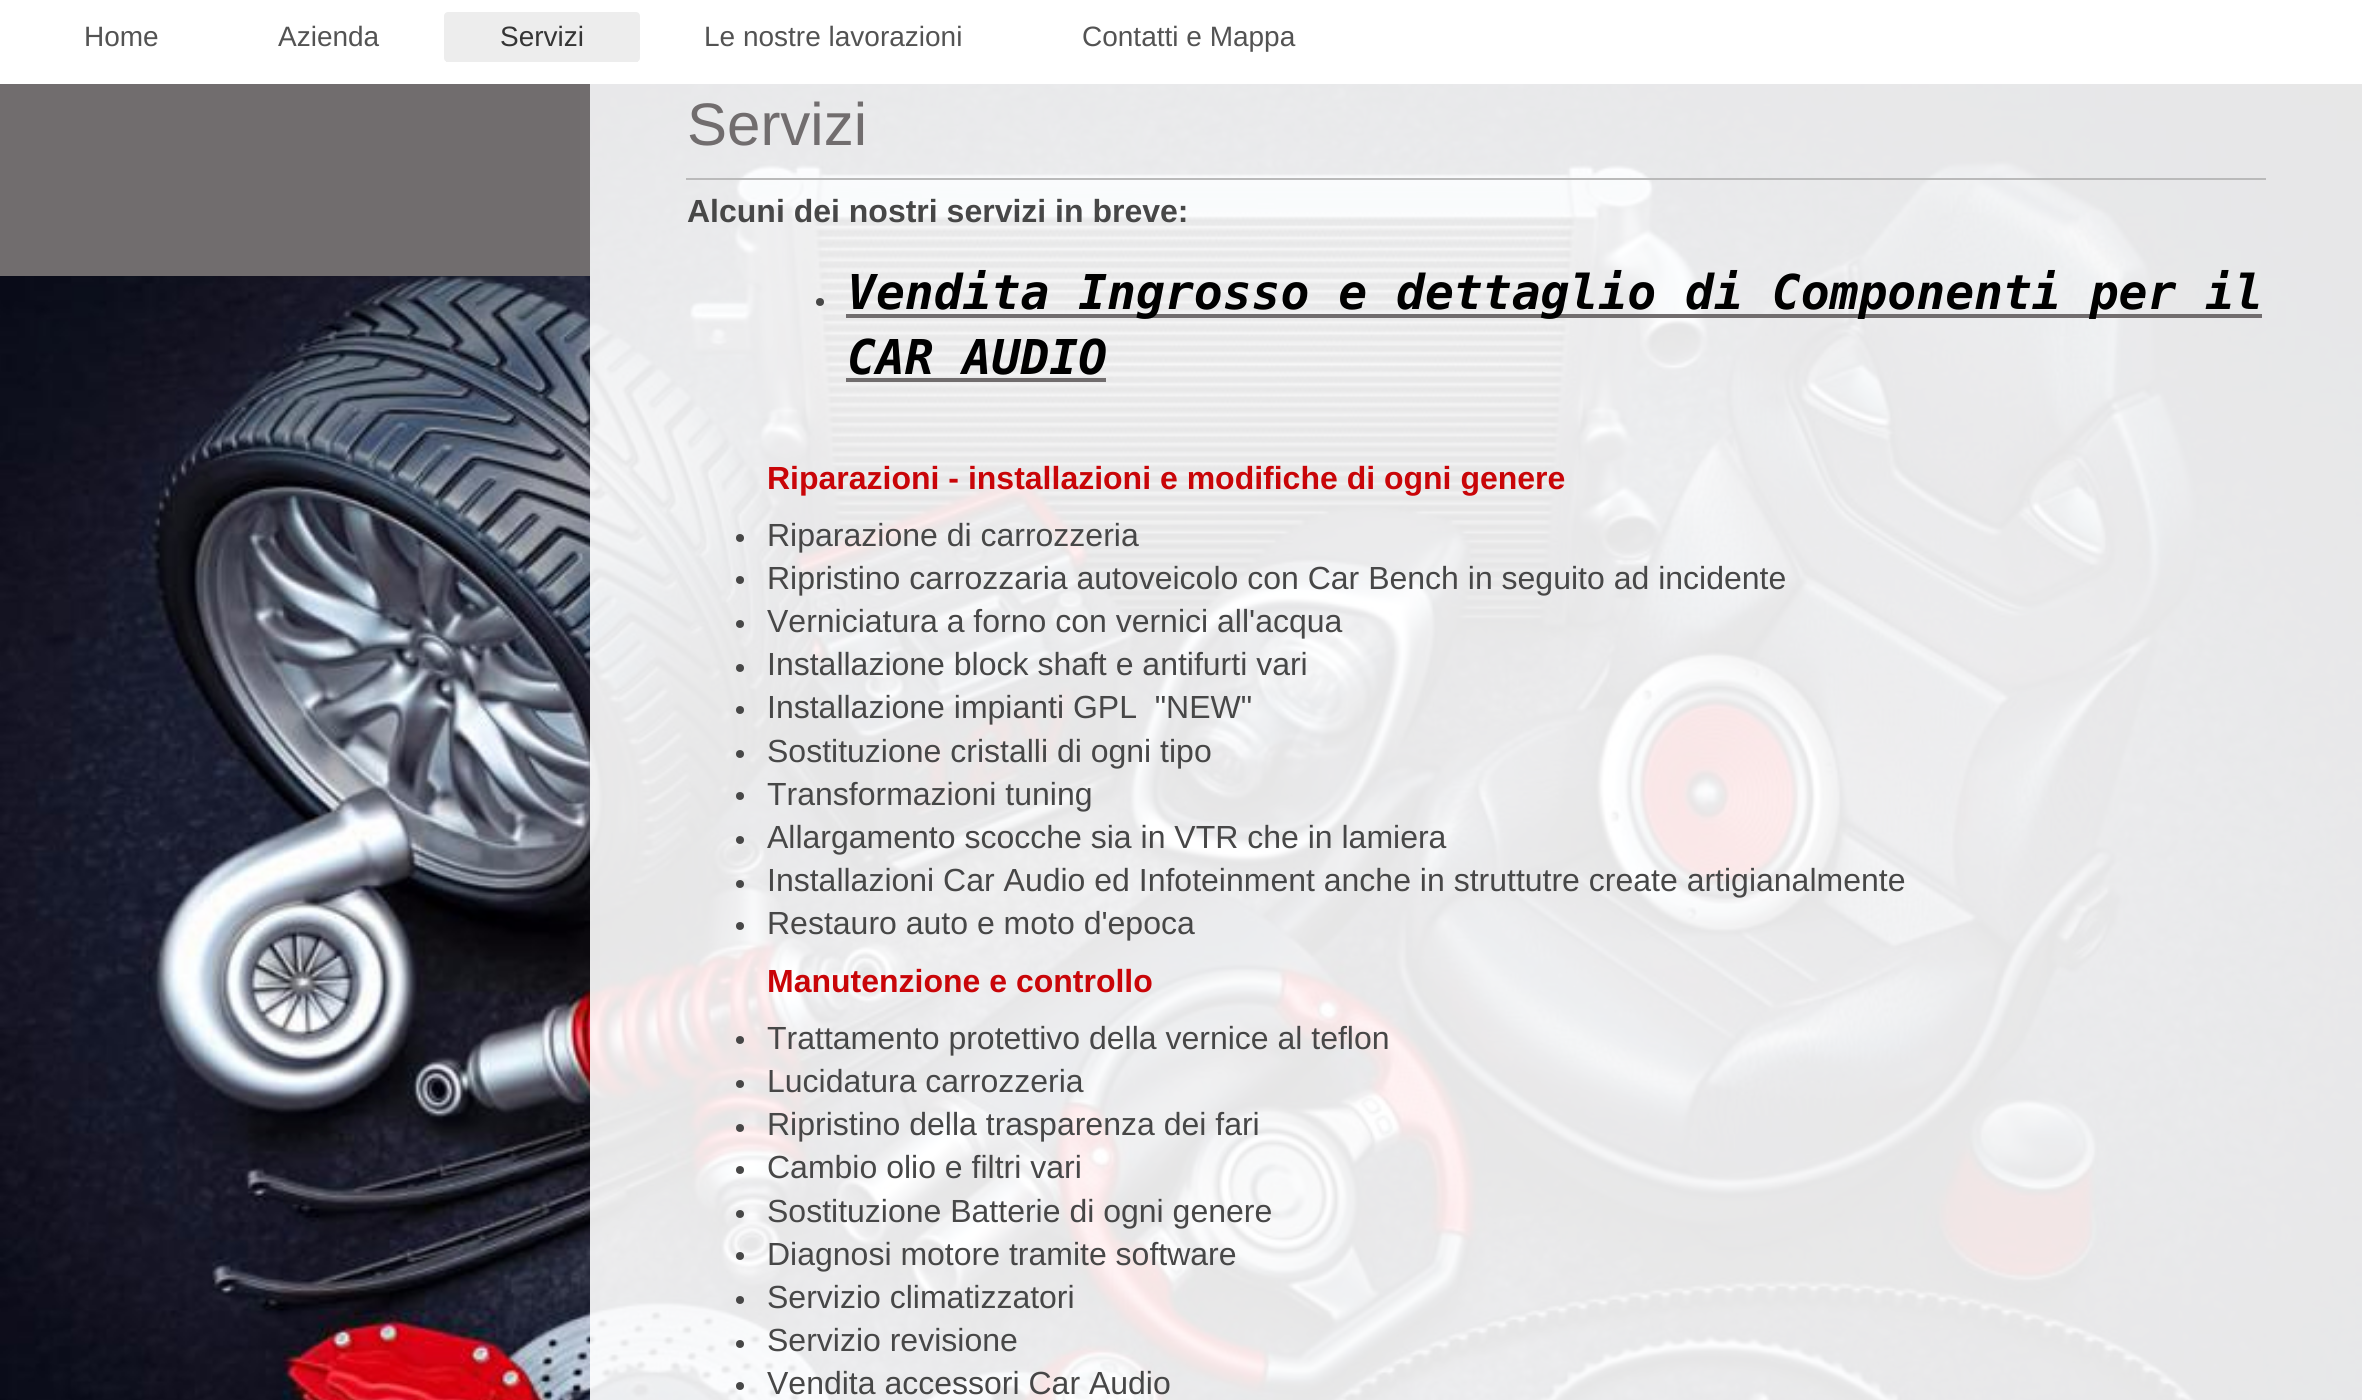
#include <cairo.h>
#include <math.h>
#include <stddef.h>


static void round_rect(cairo_t *cr, double x, double y, double w, double h, double r) {
    cairo_new_sub_path(cr);
    cairo_arc(cr, x + w - r, y + h - r, r, 0, M_PI / 2);
    cairo_arc(cr, x + r, y + h - r, r, M_PI / 2, M_PI);
    cairo_arc(cr, x + r, y + r, r, M_PI, 1.5 * M_PI);
    cairo_arc(cr, x + w - r, y + r, r, 1.5 * M_PI, 2 * M_PI);
    cairo_close_path(cr);
}

static void picture(cairo_t *cr, const char *path, double x, double y, double w, double h) {
    cairo_surface_t *image = cairo_image_surface_create_from_png(path);
    cairo_save(cr);
    cairo_set_source_surface(cr, image, x, y);
    cairo_rectangle(cr, x, y, w, h);
    cairo_fill(cr);
    cairo_restore(cr);
    cairo_surface_destroy(image);
}

int main(void) {
    cairo_surface_t *surface = cairo_image_surface_create(CAIRO_FORMAT_RGB24, 2362, 1400);
    cairo_t *cr = cairo_create(surface);
    cairo_font_options_t *options = cairo_font_options_create();
    cairo_font_options_set_hint_metrics(options, CAIRO_HINT_METRICS_OFF);
    cairo_font_options_set_hint_style(options, CAIRO_HINT_STYLE_NONE);
    cairo_set_font_options(cr, options);
    cairo_set_miter_limit(cr, 4);
    cairo_set_source_rgb(cr, 1, 1, 1);
    cairo_paint(cr);
    picture(cr, "img1.png", 0, 84, 2362, 1316);
    cairo_select_font_face(cr, "Liberation Sans", CAIRO_FONT_SLANT_NORMAL, CAIRO_FONT_WEIGHT_NORMAL);
    cairo_set_font_size(cr, 28);
    cairo_set_source_rgb(cr, 0.325, 0.325, 0.325);
    cairo_move_to(cr, 84, 46);
    cairo_show_text(cr, "Home");
    cairo_move_to(cr, 278, 46);
    cairo_show_text(cr, "Azienda");
    cairo_set_source_rgb(cr, 0.929, 0.929, 0.929);
    round_rect(cr, 444, 12, 196, 50, 4);
    cairo_fill(cr);
    cairo_rectangle(cr, 446, 61, 192, 1);
    cairo_fill(cr);
    cairo_set_source_rgb(cr, 0.208, 0.208, 0.208);
    cairo_move_to(cr, 500, 46);
    cairo_show_text(cr, "Servizi");
    cairo_set_source_rgb(cr, 0.325, 0.325, 0.325);
    cairo_move_to(cr, 704, 46);
    cairo_show_text(cr, "Le nostre lavorazioni");
    cairo_move_to(cr, 1082, 46);
    cairo_show_text(cr, "Contatti e Mappa");
    cairo_set_source_rgb(cr, 0.443, 0.427, 0.431);
    cairo_rectangle(cr, 0, 84, 590, 192);
    cairo_fill(cr);
    cairo_set_source_rgba(cr, 1, 1, 1, 0.9);
    cairo_rectangle(cr, 590, 84, 1772, 1316);
    cairo_fill(cr);
    cairo_set_font_size(cr, 60);
    cairo_set_source_rgb(cr, 0.443, 0.427, 0.431);
    cairo_move_to(cr, 687, 145);
    cairo_show_text(cr, "Servizi");
    cairo_set_source_rgb(cr, 0.729, 0.729, 0.729);
    cairo_rectangle(cr, 686, 178, 1580, 2);
    cairo_fill(cr);
    cairo_select_font_face(cr, "Liberation Sans", CAIRO_FONT_SLANT_NORMAL, CAIRO_FONT_WEIGHT_BOLD);
    cairo_set_font_size(cr, 32);
    cairo_set_source_rgb(cr, 0.278, 0.278, 0.278);
    cairo_move_to(cr, 687, 222);
    cairo_show_text(cr, "Alcuni dei nostri servizi in breve:");
    cairo_new_path(cr);
    cairo_arc(cr, 820, 302, 4, 0, 2 * M_PI);
    cairo_fill(cr);
    cairo_set_source_rgb(cr, 0.443, 0.427, 0.431);
    cairo_rectangle(cr, 846, 314, 1416, 4);
    cairo_fill(cr);
    cairo_select_font_face(cr, "DejaVu Sans Mono", CAIRO_FONT_SLANT_ITALIC, CAIRO_FONT_WEIGHT_BOLD);
    cairo_set_font_size(cr, 48);
    cairo_set_source_rgb(cr, 0, 0, 0);
    cairo_move_to(cr, 847, 309);
    cairo_show_text(cr, "Vendita Ingrosso e dettaglio di Componenti per il");
    cairo_move_to(cr, 847, 374);
    cairo_show_text(cr, "CAR AUDIO");
    cairo_set_source_rgb(cr, 0.443, 0.427, 0.431);
    cairo_rectangle(cr, 846, 378, 260, 4);
    cairo_fill(cr);
    cairo_select_font_face(cr, "Liberation Sans", CAIRO_FONT_SLANT_NORMAL, CAIRO_FONT_WEIGHT_BOLD);
    cairo_set_font_size(cr, 32);
    cairo_set_source_rgb(cr, 0.788, 0.02, 0.035);
    cairo_move_to(cr, 767, 489);
    cairo_show_text(cr, "Riparazioni - installazioni e modifiche di ogni genere");
    cairo_set_source_rgb(cr, 0.278, 0.278, 0.278);
    cairo_new_path(cr);
    cairo_arc(cr, 740, 538, 4, 0, 2 * M_PI);
    cairo_fill(cr);
    cairo_select_font_face(cr, "Liberation Sans", CAIRO_FONT_SLANT_NORMAL, CAIRO_FONT_WEIGHT_NORMAL);
    cairo_move_to(cr, 767, 546);
    cairo_show_text(cr, "Riparazione di carrozzeria");
    cairo_new_path(cr);
    cairo_arc(cr, 740, 580, 4, 0, 2 * M_PI);
    cairo_fill(cr);
    cairo_move_to(cr, 767, 589);
    cairo_show_text(cr, "Ripristino carrozzaria autoveicolo con Car Bench in seguito ad incidente");
    cairo_new_path(cr);
    cairo_arc(cr, 740, 624, 4, 0, 2 * M_PI);
    cairo_fill(cr);
    cairo_move_to(cr, 767, 632);
    cairo_show_text(cr, "Verniciatura a forno con vernici all'acqua");
    cairo_new_path(cr);
    cairo_arc(cr, 740, 668, 4, 0, 2 * M_PI);
    cairo_fill(cr);
    cairo_move_to(cr, 767, 675);
    cairo_show_text(cr, "Installazione block shaft e antifurti vari");
    cairo_new_path(cr);
    cairo_arc(cr, 740, 710, 4, 0, 2 * M_PI);
    cairo_fill(cr);
    cairo_move_to(cr, 767, 718);
    cairo_show_text(cr, "Installazione impianti GPL  \"NEW\"");
    cairo_new_path(cr);
    cairo_arc(cr, 740, 754, 4, 0, 2 * M_PI);
    cairo_fill(cr);
    cairo_move_to(cr, 767, 762);
    cairo_show_text(cr, "Sostituzione cristalli di ogni tipo");
    cairo_new_path(cr);
    cairo_arc(cr, 740, 796, 4, 0, 2 * M_PI);
    cairo_fill(cr);
    cairo_move_to(cr, 767, 805);
    cairo_show_text(cr, "Transformazioni tuning");
    cairo_new_path(cr);
    cairo_arc(cr, 740, 840, 4, 0, 2 * M_PI);
    cairo_fill(cr);
    cairo_move_to(cr, 767, 848);
    cairo_show_text(cr, "Allargamento scocche sia in VTR che in lamiera");
    cairo_new_path(cr);
    cairo_arc(cr, 740, 884, 4, 0, 2 * M_PI);
    cairo_fill(cr);
    cairo_move_to(cr, 767, 891);
    cairo_show_text(cr, "Installazioni Car Audio ed Infoteinment anche in struttutre create artigianalmente");
    cairo_new_path(cr);
    cairo_arc(cr, 740, 926, 4, 0, 2 * M_PI);
    cairo_fill(cr);
    cairo_move_to(cr, 767, 934);
    cairo_show_text(cr, "Restauro auto e moto d'epoca");
    cairo_select_font_face(cr, "Liberation Sans", CAIRO_FONT_SLANT_NORMAL, CAIRO_FONT_WEIGHT_BOLD);
    cairo_set_source_rgb(cr, 0.788, 0.02, 0.035);
    cairo_move_to(cr, 767, 992);
    cairo_show_text(cr, "Manutenzione e controllo");
    cairo_set_source_rgb(cr, 0.278, 0.278, 0.278);
    cairo_new_path(cr);
    cairo_arc(cr, 740, 1040, 4, 0, 2 * M_PI);
    cairo_fill(cr);
    cairo_select_font_face(cr, "Liberation Sans", CAIRO_FONT_SLANT_NORMAL, CAIRO_FONT_WEIGHT_NORMAL);
    cairo_move_to(cr, 767, 1049);
    cairo_show_text(cr, "Trattamento protettivo della vernice al teflon");
    cairo_new_path(cr);
    cairo_arc(cr, 740, 1084, 4, 0, 2 * M_PI);
    cairo_fill(cr);
    cairo_move_to(cr, 767, 1092);
    cairo_show_text(cr, "Lucidatura carrozzeria");
    cairo_new_path(cr);
    cairo_arc(cr, 740, 1128, 4, 0, 2 * M_PI);
    cairo_fill(cr);
    cairo_move_to(cr, 767, 1135);
    cairo_show_text(cr, "Ripristino della trasparenza dei fari");
    cairo_new_path(cr);
    cairo_arc(cr, 740, 1170, 4, 0, 2 * M_PI);
    cairo_fill(cr);
    cairo_move_to(cr, 767, 1178);
    cairo_show_text(cr, "Cambio olio e filtri vari");
    cairo_new_path(cr);
    cairo_arc(cr, 740, 1214, 4, 0, 2 * M_PI);
    cairo_fill(cr);
    cairo_move_to(cr, 767, 1222);
    cairo_show_text(cr, "Sostituzione Batterie di ogni genere");
    cairo_new_path(cr);
    cairo_arc(cr, 740, 1256, 4, 0, 2 * M_PI);
    cairo_fill(cr);
    cairo_move_to(cr, 767, 1265);
    cairo_show_text(cr, "Diagnosi motore tramite software");
    cairo_new_path(cr);
    cairo_arc(cr, 740, 1300, 4, 0, 2 * M_PI);
    cairo_fill(cr);
    cairo_move_to(cr, 767, 1308);
    cairo_show_text(cr, "Servizio climatizzatori");
    cairo_new_path(cr);
    cairo_arc(cr, 740, 1344, 4, 0, 2 * M_PI);
    cairo_fill(cr);
    cairo_move_to(cr, 767, 1351);
    cairo_show_text(cr, "Servizio revisione");
    cairo_new_path(cr);
    cairo_arc(cr, 740, 1386, 4, 0, 2 * M_PI);
    cairo_fill(cr);
    cairo_move_to(cr, 767, 1394);
    cairo_show_text(cr, "Vendita accessori Car Audio");
    cairo_surface_write_to_png(surface, "page.png");
    cairo_font_options_destroy(options);
    cairo_destroy(cr);
    cairo_surface_destroy(surface);
    return 0;
}
